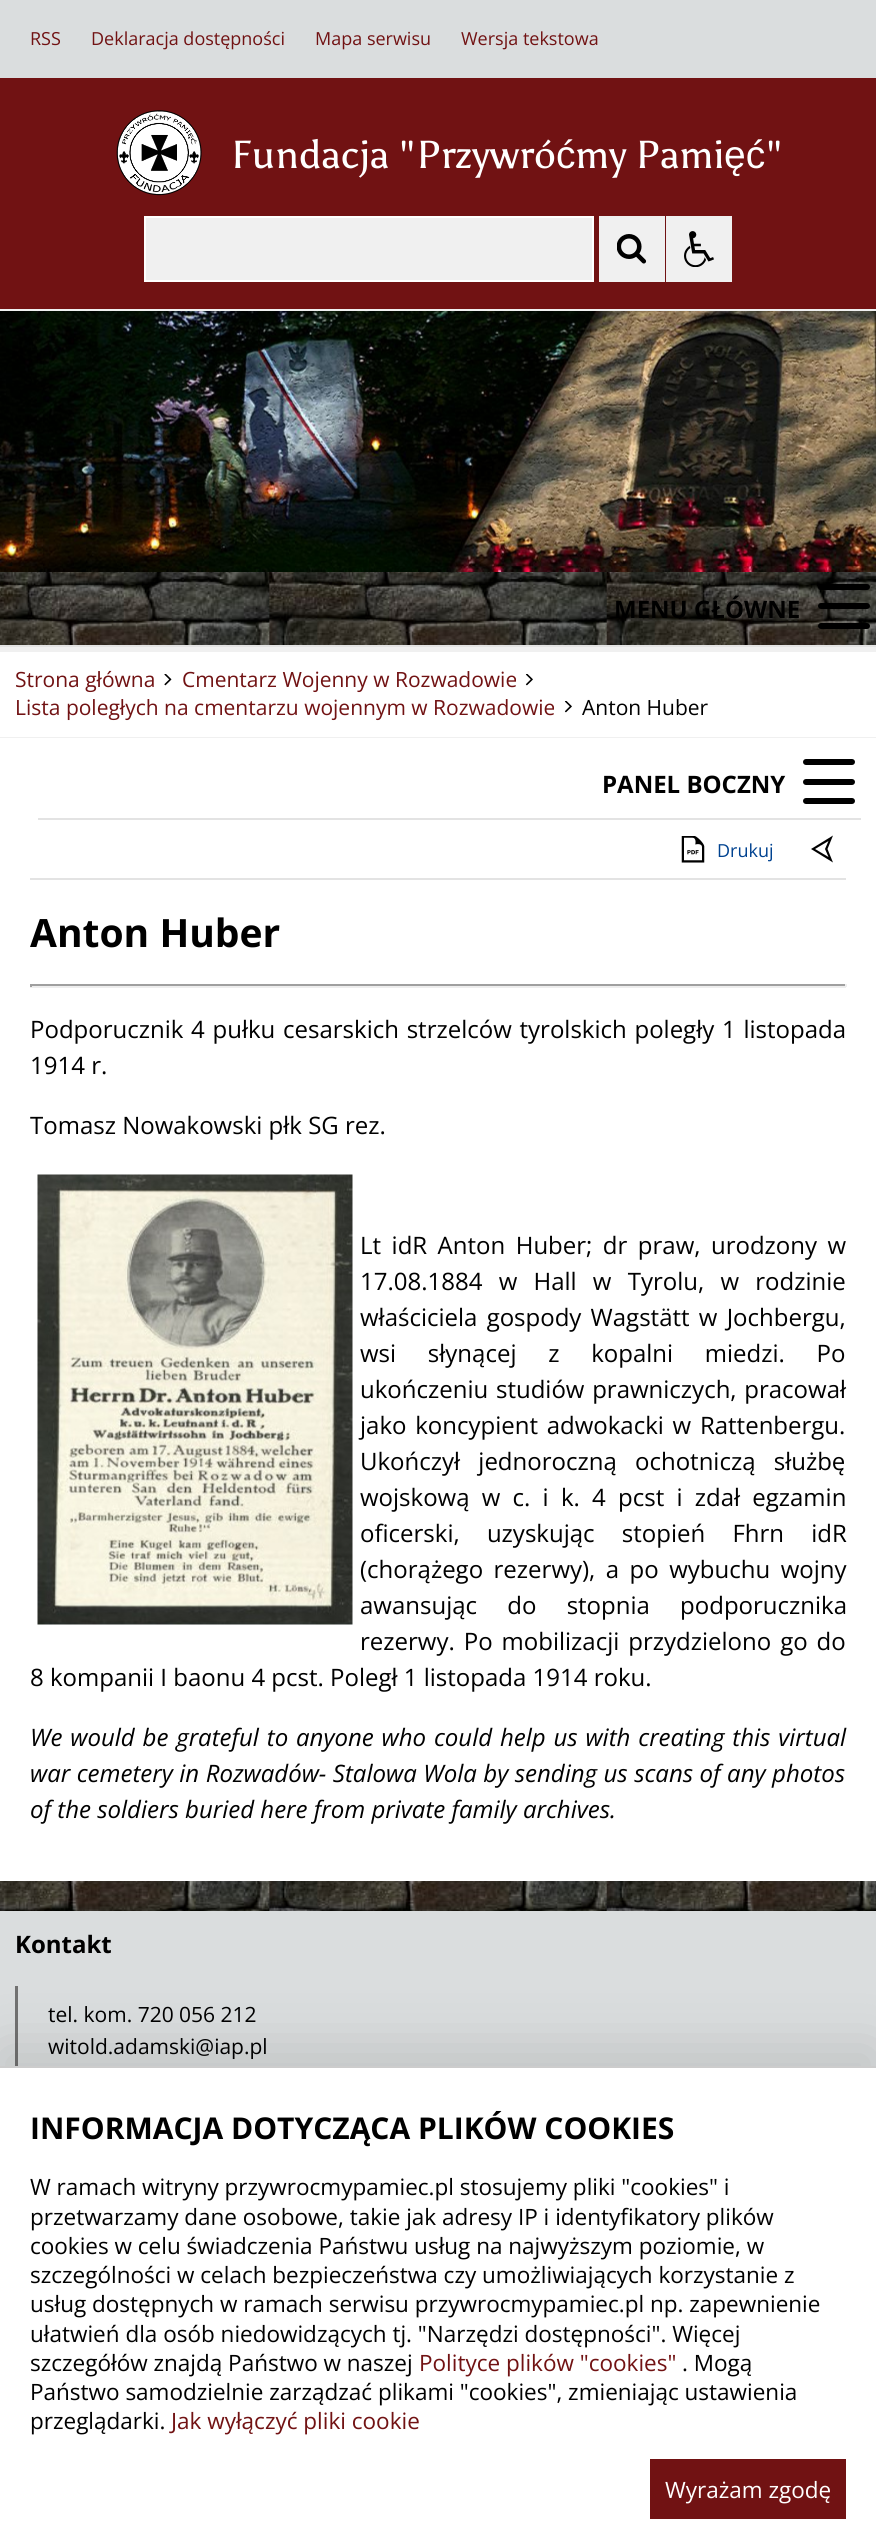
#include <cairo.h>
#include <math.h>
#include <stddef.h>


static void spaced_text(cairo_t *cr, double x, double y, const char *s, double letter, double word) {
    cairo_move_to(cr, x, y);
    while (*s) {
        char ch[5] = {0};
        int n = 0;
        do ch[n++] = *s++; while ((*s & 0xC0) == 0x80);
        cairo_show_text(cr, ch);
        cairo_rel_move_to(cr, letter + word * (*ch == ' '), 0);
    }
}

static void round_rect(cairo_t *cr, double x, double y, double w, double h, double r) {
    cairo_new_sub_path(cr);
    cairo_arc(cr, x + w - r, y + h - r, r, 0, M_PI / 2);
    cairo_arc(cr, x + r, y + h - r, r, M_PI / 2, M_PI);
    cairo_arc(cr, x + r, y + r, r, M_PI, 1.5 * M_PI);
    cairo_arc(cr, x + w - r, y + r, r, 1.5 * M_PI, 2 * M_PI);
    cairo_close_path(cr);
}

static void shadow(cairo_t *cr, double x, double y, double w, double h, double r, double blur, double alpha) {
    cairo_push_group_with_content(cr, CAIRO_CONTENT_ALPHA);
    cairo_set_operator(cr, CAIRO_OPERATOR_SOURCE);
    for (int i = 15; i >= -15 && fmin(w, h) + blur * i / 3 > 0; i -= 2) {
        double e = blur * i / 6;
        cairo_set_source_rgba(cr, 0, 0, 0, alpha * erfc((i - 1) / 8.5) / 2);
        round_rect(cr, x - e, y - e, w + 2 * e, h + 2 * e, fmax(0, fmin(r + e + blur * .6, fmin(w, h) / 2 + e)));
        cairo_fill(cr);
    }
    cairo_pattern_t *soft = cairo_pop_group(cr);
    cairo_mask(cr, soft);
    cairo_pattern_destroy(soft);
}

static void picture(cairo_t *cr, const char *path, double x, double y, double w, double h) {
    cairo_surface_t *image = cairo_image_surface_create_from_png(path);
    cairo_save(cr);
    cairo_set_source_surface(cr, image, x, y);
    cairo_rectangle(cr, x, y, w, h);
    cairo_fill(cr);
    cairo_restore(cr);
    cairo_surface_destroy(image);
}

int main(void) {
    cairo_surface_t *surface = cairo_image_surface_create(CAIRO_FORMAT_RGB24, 876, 2533);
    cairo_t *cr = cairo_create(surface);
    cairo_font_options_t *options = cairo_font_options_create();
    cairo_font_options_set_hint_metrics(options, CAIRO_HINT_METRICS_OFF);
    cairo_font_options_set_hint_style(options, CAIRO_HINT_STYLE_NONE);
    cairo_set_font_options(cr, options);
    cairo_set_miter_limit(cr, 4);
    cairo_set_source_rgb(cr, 1, 1, 1);
    cairo_paint(cr);
    picture(cr, "img1.png", 0, 572, 876, 1339);
    cairo_set_source_rgb(cr, 0.855, 0.867, 0.871);
    cairo_rectangle(cr, 0, 0, 876, 78);
    cairo_fill(cr);
    cairo_select_font_face(cr, "Open Sans", CAIRO_FONT_SLANT_NORMAL, CAIRO_FONT_WEIGHT_NORMAL);
    cairo_set_font_size(cr, 18);
    cairo_set_source_rgb(cr, 0.443, 0.071, 0.075);
    cairo_move_to(cr, 30, 45);
    cairo_show_text(cr, "RSS");
    cairo_move_to(cr, 91, 45);
    cairo_show_text(cr, "Deklaracja dostępności");
    cairo_move_to(cr, 315, 45);
    cairo_show_text(cr, "Mapa serwisu");
    cairo_move_to(cr, 461, 45);
    cairo_show_text(cr, "Wersja tekstowa");
    cairo_rectangle(cr, 0, 78, 876, 231);
    cairo_fill(cr);
    cairo_set_source_rgb(cr, 0.941, 0.941, 0.941);
    cairo_rectangle(cr, 0, 309, 876, 2);
    cairo_fill(cr);
    picture(cr, "img2.png", 116, 110, 86, 86);
    cairo_select_font_face(cr, "Asul", CAIRO_FONT_SLANT_NORMAL, CAIRO_FONT_WEIGHT_NORMAL);
    cairo_set_font_size(cr, 39);
    cairo_set_source_rgb(cr, 1, 1, 1);
    cairo_move_to(cr, 231, 168);
    cairo_show_text(cr, "Fundacja \"Przywró");
    cairo_select_font_face(cr, "Liberation Sans", CAIRO_FONT_SLANT_NORMAL, CAIRO_FONT_WEIGHT_NORMAL);
    cairo_move_to(cr, 556, 168);
    cairo_show_text(cr, "ć");
    cairo_select_font_face(cr, "Asul", CAIRO_FONT_SLANT_NORMAL, CAIRO_FONT_WEIGHT_NORMAL);
    cairo_move_to(cr, 575, 168);
    cairo_show_text(cr, "my Pami");
    cairo_select_font_face(cr, "Liberation Sans", CAIRO_FONT_SLANT_NORMAL, CAIRO_FONT_WEIGHT_NORMAL);
    cairo_move_to(cr, 724, 168);
    cairo_show_text(cr, "ęć");
    cairo_select_font_face(cr, "Asul", CAIRO_FONT_SLANT_NORMAL, CAIRO_FONT_WEIGHT_NORMAL);
    cairo_move_to(cr, 765, 168);
    cairo_show_text(cr, "\"");
    cairo_set_source_rgb(cr, 0.941, 0.941, 0.941);
    cairo_rectangle(cr, 145, 217, 448, 64);
    cairo_fill_preserve(cr);
    cairo_set_source_rgb(cr, 1, 1, 1);
    cairo_stroke(cr);
    cairo_set_source_rgb(cr, 0.941, 0.941, 0.941);
    cairo_rectangle(cr, 599, 216, 66, 66);
    cairo_fill(cr);
    picture(cr, "img3.png", 617, 234, 30, 30);
    cairo_rectangle(cr, 666, 216, 66, 66);
    cairo_fill(cr);
    picture(cr, "img4.png", 684, 231, 30, 36);
    picture(cr, "img5.png", 0, 311, 876, 261);
    cairo_set_source_rgb(cr, 0.89, 0.89, 0.89);
    cairo_rectangle(cr, 0, 645, 876, 2);
    cairo_fill(cr);
    cairo_select_font_face(cr, "Open Sans", CAIRO_FONT_SLANT_NORMAL, CAIRO_FONT_WEIGHT_BOLD);
    cairo_set_font_size(cr, 24);
    cairo_set_source_rgb(cr, 0, 0, 0);
    cairo_move_to(cr, 614, 618);
    cairo_show_text(cr, "MENU GŁÓWNE");
    round_rect(cr, 818, 584, 52, 6, 3);
    cairo_fill(cr);
    round_rect(cr, 818, 603, 52, 6, 3);
    cairo_fill(cr);
    round_rect(cr, 818, 623, 52, 6, 3);
    cairo_fill(cr);
    cairo_set_source_rgb(cr, 1, 1, 1);
    cairo_rectangle(cr, 0, 652, 876, 85);
    cairo_fill(cr);
    cairo_set_source_rgb(cr, 0.941, 0.941, 0.941);
    cairo_rectangle(cr, 0, 647, 876, 5);
    cairo_fill(cr);
    cairo_rectangle(cr, 0, 737, 876, 1);
    cairo_fill(cr);
    cairo_select_font_face(cr, "Open Sans", CAIRO_FONT_SLANT_NORMAL, CAIRO_FONT_WEIGHT_NORMAL);
    cairo_set_font_size(cr, 21);
    cairo_set_source_rgb(cr, 0.443, 0.071, 0.075);
    cairo_move_to(cr, 15, 687);
    cairo_show_text(cr, "Strona główna");
    picture(cr, "img6.png", 164, 674, 8, 12);
    cairo_move_to(cr, 182, 687);
    cairo_show_text(cr, "Cmentarz Wojenny w Rozwadowie");
    picture(cr, "img7.png", 525, 674, 8, 12);
    cairo_move_to(cr, 15, 715);
    cairo_show_text(cr, "Lista poległych na cmentarzu wojennym w Rozwadowie");
    picture(cr, "img7.png", 564, 701, 8, 12);
    cairo_set_source_rgb(cr, 0, 0, 0);
    cairo_move_to(cr, 582, 715);
    cairo_show_text(cr, "Anton Huber");
    cairo_set_source_rgb(cr, 1, 1, 1);
    cairo_rectangle(cr, 0, 738, 876, 1143);
    cairo_fill(cr);
    cairo_set_source_rgb(cr, 0.89, 0.89, 0.89);
    cairo_rectangle(cr, 38, 818, 823, 2);
    cairo_fill(cr);
    cairo_select_font_face(cr, "Open Sans", CAIRO_FONT_SLANT_NORMAL, CAIRO_FONT_WEIGHT_BOLD);
    cairo_set_font_size(cr, 24);
    cairo_set_source_rgb(cr, 0, 0, 0);
    cairo_move_to(cr, 602, 793);
    cairo_show_text(cr, "PANEL BOCZNY");
    round_rect(cr, 803, 759, 52, 6, 3);
    cairo_fill(cr);
    round_rect(cr, 803, 779, 52, 6, 3);
    cairo_fill(cr);
    round_rect(cr, 803, 798, 52, 6, 3);
    cairo_fill(cr);
    cairo_set_source_rgb(cr, 0.89, 0.89, 0.89);
    cairo_rectangle(cr, 30, 878, 816, 2);
    cairo_fill(cr);
    picture(cr, "img8.png", 681, 836, 24, 27);
    cairo_select_font_face(cr, "Open Sans", CAIRO_FONT_SLANT_NORMAL, CAIRO_FONT_WEIGHT_NORMAL);
    cairo_set_font_size(cr, 18);
    cairo_set_source_rgb(cr, 0, 0.259, 0.565);
    cairo_move_to(cr, 717, 857);
    cairo_show_text(cr, "Drukuj");
    cairo_set_source_rgb(cr, 0, 0, 0);
    cairo_new_path(cr);
    cairo_move_to(cr, 828.5, 857);
    cairo_line_to(cr, 815, 849);
    cairo_line_to(cr, 828.5, 841);
    cairo_line_to(cr, 825, 849);
    cairo_close_path(cr);
    cairo_move_to(cr, 833, 862.5);
    cairo_line_to(cr, 827.5, 849);
    cairo_line_to(cr, 833, 835.5);
    cairo_line_to(cr, 811, 849);
    cairo_close_path(cr);
    cairo_fill(cr);
    cairo_select_font_face(cr, "Open Sans", CAIRO_FONT_SLANT_NORMAL, CAIRO_FONT_WEIGHT_BOLD);
    cairo_set_font_size(cr, 39);
    cairo_move_to(cr, 30, 947);
    cairo_show_text(cr, "Anton Huber");
    cairo_set_source_rgb(cr, 0.624, 0.624, 0.624);
    cairo_rectangle(cr, 30, 984, 816, 2);
    cairo_fill(cr);
    cairo_set_source_rgb(cr, 0.933, 0.933, 0.933);
    cairo_rectangle(cr, 845, 984, 2, 3);
    cairo_fill(cr);
    cairo_rectangle(cr, 30, 986, 816, 2);
    cairo_fill(cr);
    cairo_set_source_rgb(cr, 0.624, 0.624, 0.624);
    cairo_rectangle(cr, 30, 984, 2, 3);
    cairo_fill(cr);
    cairo_select_font_face(cr, "Open Sans", CAIRO_FONT_SLANT_NORMAL, CAIRO_FONT_WEIGHT_NORMAL);
    cairo_set_font_size(cr, 24);
    cairo_set_source_rgb(cr, 0, 0, 0);
    spaced_text(cr, 30, 1038, "Podporucznik 4 pułku cesarskich strzelców tyrolskich poległy 1 listopada", 0, 1.5);
    cairo_move_to(cr, 30, 1074);
    cairo_show_text(cr, "1914 r.");
    cairo_move_to(cr, 30, 1134);
    cairo_show_text(cr, "Tomasz Nowakowski płk SG rez.");
    picture(cr, "img9.png", 37, 1174, 316, 451);
    spaced_text(cr, 360, 1254, "Lt idR Anton Huber; dr praw, urodzony w", 0, 4.25);
    spaced_text(cr, 360, 1290, "17.08.1884 w Hall w Tyrolu, w rodzinie", 0, 10);
    spaced_text(cr, 360, 1326, "właściciela gospody Wagstätt w Jochbergu,", 0, 3);
    spaced_text(cr, 360, 1362, "wsi słynącej z kopalni miedzi. Po", 0, 25.5);
    spaced_text(cr, 360, 1398, "ukończeniu studiów prawniczych, pracował", 0, 1.5);
    spaced_text(cr, 360, 1434, "jako koncypient adwokacki w Rattenbergu.", 0, 2.5);
    spaced_text(cr, 360, 1470, "Ukończył jednoroczną ochotniczą służbę", 0, 12);
    spaced_text(cr, 360, 1506, "wojskową w c. i k. 4 pcst i zdał egzamin", 0, 6);
    spaced_text(cr, 360, 1542, "oficerski, uzyskując stopień Fhrn idR", 0, 21);
    spaced_text(cr, 360, 1578, "(chorążego rezerwy), a po wybuchu wojny", 0, 4.25);
    spaced_text(cr, 360, 1614, "awansując do stopnia podporucznika", 0, 24);
    spaced_text(cr, 360, 1650, "rezerwy. Po mobilizacji przydzielono go do", 0, 2.75);
    cairo_move_to(cr, 30, 1686);
    cairo_show_text(cr, "8 kompanii I baonu 4 pcst. Poległ 1 listopada 1914 roku.");
    cairo_select_font_face(cr, "Open Sans", CAIRO_FONT_SLANT_ITALIC, CAIRO_FONT_WEIGHT_NORMAL);
    spaced_text(cr, 30, 1746, "We would be grateful to anyone who could help us with creating this virtual", 0, 1.6);
    spaced_text(cr, 30, 1782, "war cemetery in Rozwadów- Stalowa Wola by sending us scans of any photos", 0, 0.25);
    cairo_move_to(cr, 30, 1818);
    cairo_show_text(cr, "of the soldiers buried here from private family archives.");
    cairo_set_source_rgb(cr, 0.855, 0.867, 0.871);
    cairo_rectangle(cr, 0, 1911, 876, 155);
    cairo_fill(cr);
    cairo_select_font_face(cr, "Open Sans", CAIRO_FONT_SLANT_NORMAL, CAIRO_FONT_WEIGHT_BOLD);
    cairo_set_source_rgb(cr, 0, 0, 0);
    cairo_move_to(cr, 15, 1953);
    cairo_show_text(cr, "Kontakt");
    cairo_set_source_rgb(cr, 0.443, 0.443, 0.443);
    cairo_rectangle(cr, 15, 1986, 3, 80);
    cairo_fill(cr);
    cairo_select_font_face(cr, "Open Sans", CAIRO_FONT_SLANT_NORMAL, CAIRO_FONT_WEIGHT_NORMAL);
    cairo_set_font_size(cr, 21);
    cairo_set_source_rgb(cr, 0, 0, 0);
    cairo_move_to(cr, 48, 2022);
    cairo_show_text(cr, "tel. kom. 720 056 212");
    cairo_move_to(cr, 48, 2054);
    cairo_show_text(cr, "witold.adamski@iap.pl");
    cairo_set_source_rgb(cr, 0, 0, 0);
    shadow(cr, 0, 2048, 876, 468, 0, 30, 0.12);
    cairo_set_source_rgb(cr, 1, 1, 1);
    cairo_rectangle(cr, 0, 2068, 876, 465);
    cairo_fill(cr);
    cairo_set_source_rgb(cr, 0.8, 0.8, 0.8);
    cairo_rectangle(cr, 0, 2066, 876, 2);
    cairo_fill(cr);
    cairo_select_font_face(cr, "Open Sans", CAIRO_FONT_SLANT_NORMAL, CAIRO_FONT_WEIGHT_BOLD);
    cairo_set_font_size(cr, 30);
    cairo_set_source_rgb(cr, 0, 0, 0);
    cairo_move_to(cr, 30, 2139);
    cairo_show_text(cr, "INFORMACJA DOTYCZĄCA PLIKÓW COOKIES");
    cairo_select_font_face(cr, "Open Sans", CAIRO_FONT_SLANT_NORMAL, CAIRO_FONT_WEIGHT_NORMAL);
    cairo_set_font_size(cr, 22.5);
    cairo_move_to(cr, 30, 2195);
    cairo_show_text(cr, "W ramach witryny przywrocmypamiec.pl stosujemy pliki \"cookies\" i");
    cairo_move_to(cr, 30, 2225);
    cairo_show_text(cr, "przetwarzamy dane osobowe, takie jak adresy IP i identyfikatory plików");
    cairo_move_to(cr, 30, 2254);
    cairo_show_text(cr, "cookies w celu świadczenia Państwu usług na najwyższym poziomie, w");
    cairo_move_to(cr, 30, 2283);
    cairo_show_text(cr, "szczególności w celach bezpieczeństwa czy umożliwiających korzystanie z");
    cairo_move_to(cr, 30, 2312);
    cairo_show_text(cr, "usług dostępnych w ramach serwisu przywrocmypamiec.pl np. zapewnienie");
    cairo_move_to(cr, 30, 2342);
    cairo_show_text(cr, "ułatwień dla osób niedowidzących tj. \"Narzędzi dostępności\". Więcej");
    cairo_move_to(cr, 30, 2371);
    cairo_show_text(cr, "szczegółów znajdą Państwo w naszej");
    cairo_set_source_rgb(cr, 0.443, 0.071, 0.075);
    cairo_move_to(cr, 419, 2371);
    cairo_show_text(cr, "Polityce plików \"cookies\"");
    cairo_set_source_rgb(cr, 0, 0, 0);
    cairo_move_to(cr, 682, 2371);
    cairo_show_text(cr, ". Mogą");
    cairo_move_to(cr, 30, 2400);
    cairo_show_text(cr, "Państwo samodzielnie zarządzać plikami \"cookies\", zmieniając ustawienia");
    cairo_move_to(cr, 30, 2429);
    cairo_show_text(cr, "przeglądarki.");
    cairo_set_source_rgb(cr, 0.443, 0.071, 0.075);
    cairo_move_to(cr, 171, 2429);
    cairo_show_text(cr, "Jak wyłączyć pliki cookie");
    cairo_rectangle(cr, 650, 2459, 196, 60);
    cairo_fill(cr);
    cairo_set_source_rgb(cr, 1, 1, 1);
    cairo_move_to(cr, 665, 2498);
    cairo_show_text(cr, "Wyrażam zgodę");
    cairo_surface_write_to_png(surface, "page.png");
    cairo_font_options_destroy(options);
    cairo_destroy(cr);
    cairo_surface_destroy(surface);
    return 0;
}
